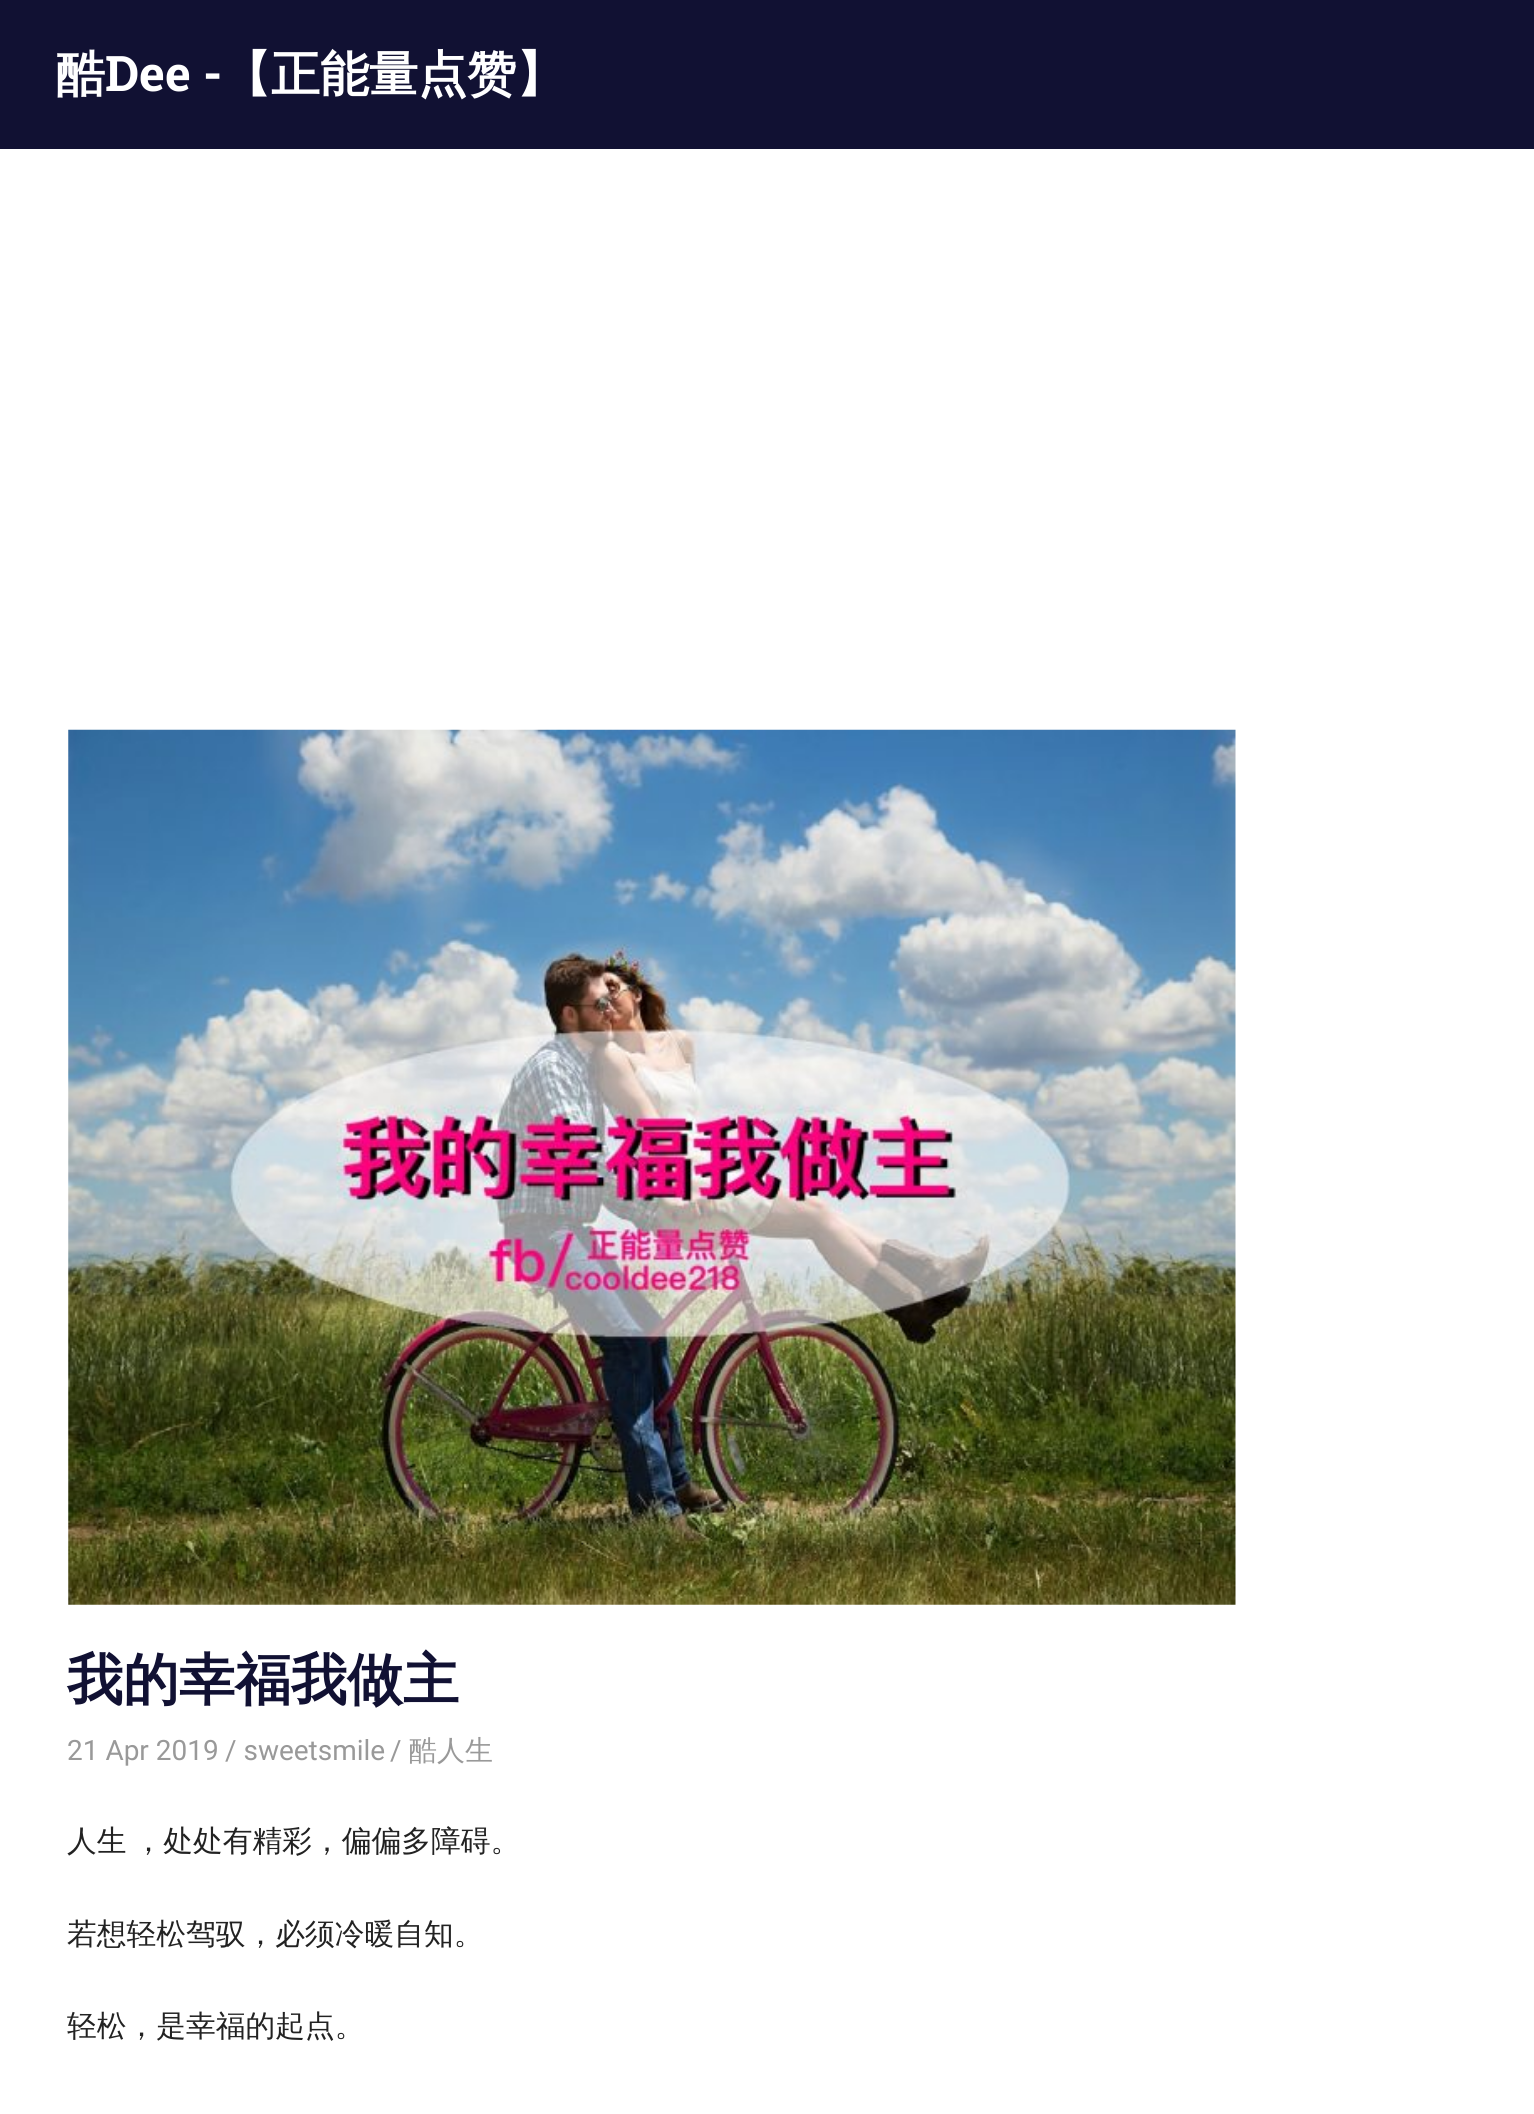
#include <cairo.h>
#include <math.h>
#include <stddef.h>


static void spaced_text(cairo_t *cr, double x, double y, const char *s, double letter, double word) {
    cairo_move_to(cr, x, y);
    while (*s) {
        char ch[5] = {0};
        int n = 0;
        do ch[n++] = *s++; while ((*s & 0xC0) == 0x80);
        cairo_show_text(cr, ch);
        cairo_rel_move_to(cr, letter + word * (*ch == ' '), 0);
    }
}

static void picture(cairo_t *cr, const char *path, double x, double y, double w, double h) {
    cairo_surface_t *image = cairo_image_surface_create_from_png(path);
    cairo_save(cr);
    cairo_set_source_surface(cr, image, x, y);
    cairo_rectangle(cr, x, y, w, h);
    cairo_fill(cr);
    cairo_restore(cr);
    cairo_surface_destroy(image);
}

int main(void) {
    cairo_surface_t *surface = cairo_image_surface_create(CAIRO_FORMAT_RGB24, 1534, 2114);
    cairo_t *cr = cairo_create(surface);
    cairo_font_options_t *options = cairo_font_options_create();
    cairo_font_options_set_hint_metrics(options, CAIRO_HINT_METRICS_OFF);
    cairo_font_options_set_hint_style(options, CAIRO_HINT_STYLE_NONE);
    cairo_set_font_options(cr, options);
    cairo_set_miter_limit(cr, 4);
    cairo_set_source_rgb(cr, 1, 1, 1);
    cairo_paint(cr);
    cairo_set_source_rgb(cr, 0.067, 0.067, 0.2);
    cairo_rectangle(cr, 0, 0, 1534, 149);
    cairo_fill(cr);
    cairo_select_font_face(cr, "WenQuanYi Zen Hei", CAIRO_FONT_SLANT_NORMAL, CAIRO_FONT_WEIGHT_BOLD);
    cairo_set_font_size(cr, 49);
    cairo_set_source_rgb(cr, 1, 1, 1);
    cairo_move_to(cr, 56, 91);
    cairo_show_text(cr, "酷");
    cairo_select_font_face(cr, "Roboto Slab", CAIRO_FONT_SLANT_NORMAL, CAIRO_FONT_WEIGHT_BOLD);
    cairo_move_to(cr, 105, 91);
    cairo_show_text(cr, "Dee -");
    cairo_select_font_face(cr, "WenQuanYi Zen Hei", CAIRO_FONT_SLANT_NORMAL, CAIRO_FONT_WEIGHT_BOLD);
    cairo_move_to(cr, 222, 91);
    cairo_show_text(cr, "【正能量点赞】");
    picture(cr, "img1.png", 68, 729, 1168, 876);
    cairo_set_font_size(cr, 56);
    cairo_set_source_rgb(cr, 0.067, 0.067, 0.2);
    cairo_move_to(cr, 67, 1699);
    cairo_show_text(cr, "我的幸福我做主");
    cairo_select_font_face(cr, "Roboto", CAIRO_FONT_SLANT_NORMAL, CAIRO_FONT_WEIGHT_NORMAL);
    cairo_set_font_size(cr, 28);
    cairo_set_source_rgb(cr, 0.6, 0.6, 0.6);
    cairo_move_to(cr, 67, 1760);
    cairo_show_text(cr, "21 Apr 2019");
    cairo_move_to(cr, 225, 1760);
    cairo_show_text(cr, "/ sweetsmile");
    cairo_move_to(cr, 390, 1760);
    cairo_show_text(cr, "/");
    cairo_select_font_face(cr, "WenQuanYi Zen Hei Medium", CAIRO_FONT_SLANT_NORMAL, CAIRO_FONT_WEIGHT_NORMAL);
    cairo_move_to(cr, 409, 1760);
    cairo_show_text(cr, "酷人生");
    cairo_set_font_size(cr, 29.75);
    cairo_set_source_rgb(cr, 0.133, 0.133, 0.133);
    spaced_text(cr, 67, 1851, "人生 ，处处有精彩，偏偏多障碍。", 0, -2);
    cairo_move_to(cr, 67, 1944);
    cairo_show_text(cr, "若想轻松驾驭，必须冷暖自知。");
    cairo_move_to(cr, 67, 2036);
    cairo_show_text(cr, "轻松，是幸福的起点。");
    cairo_surface_write_to_png(surface, "page.png");
    cairo_font_options_destroy(options);
    cairo_destroy(cr);
    cairo_surface_destroy(surface);
    return 0;
}
